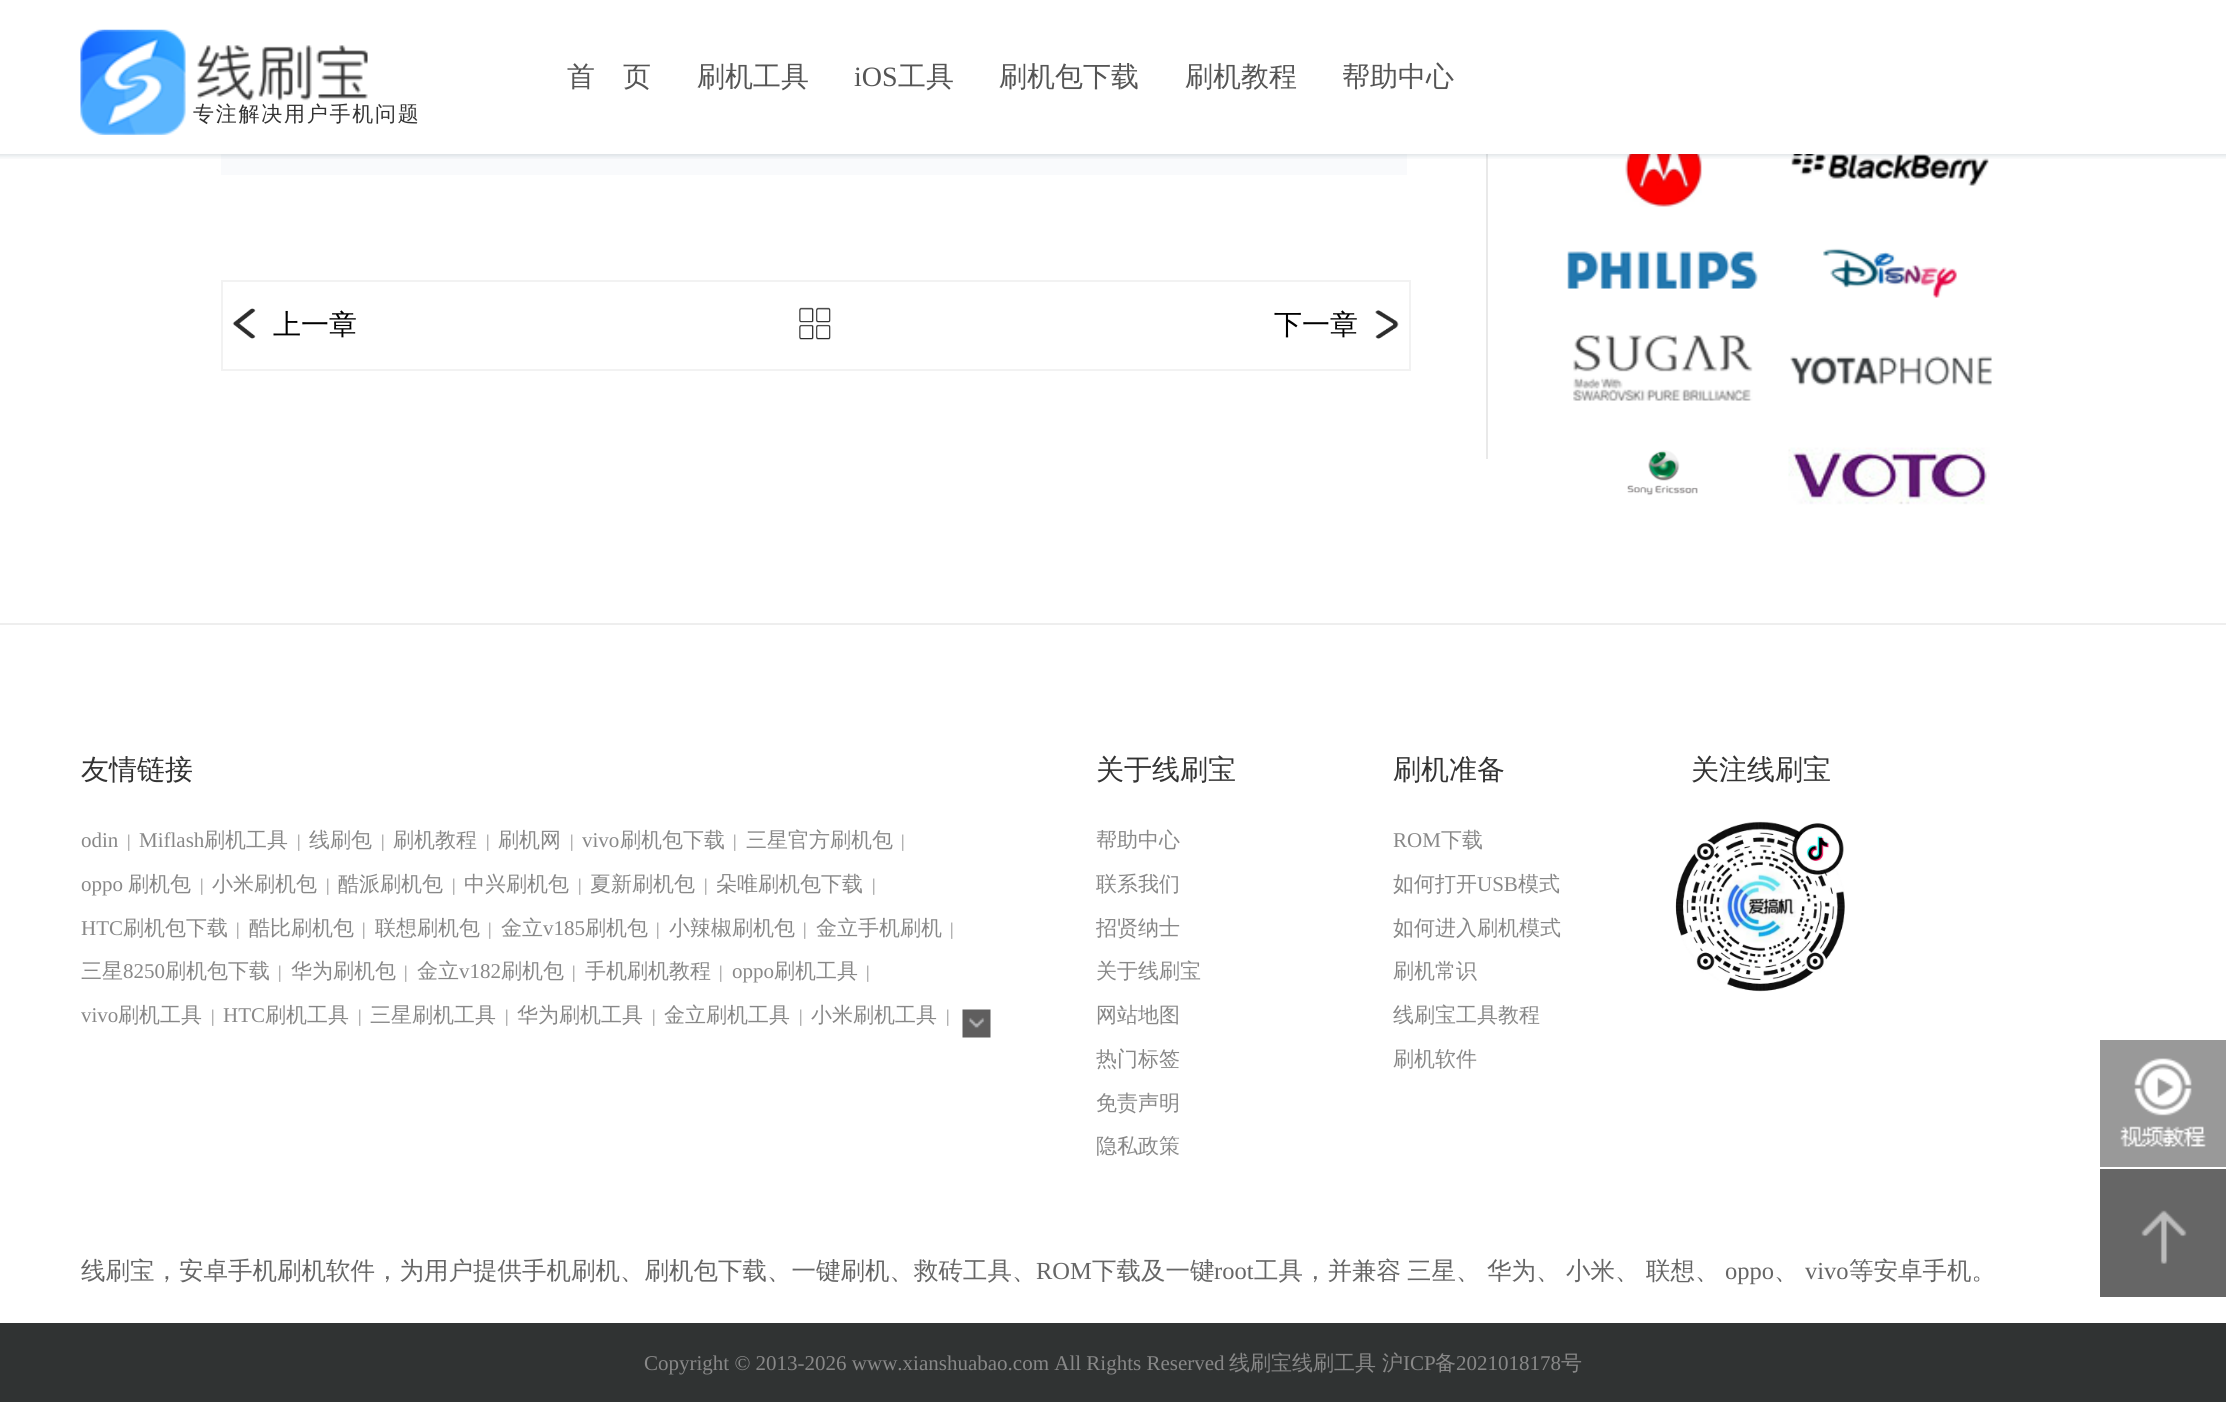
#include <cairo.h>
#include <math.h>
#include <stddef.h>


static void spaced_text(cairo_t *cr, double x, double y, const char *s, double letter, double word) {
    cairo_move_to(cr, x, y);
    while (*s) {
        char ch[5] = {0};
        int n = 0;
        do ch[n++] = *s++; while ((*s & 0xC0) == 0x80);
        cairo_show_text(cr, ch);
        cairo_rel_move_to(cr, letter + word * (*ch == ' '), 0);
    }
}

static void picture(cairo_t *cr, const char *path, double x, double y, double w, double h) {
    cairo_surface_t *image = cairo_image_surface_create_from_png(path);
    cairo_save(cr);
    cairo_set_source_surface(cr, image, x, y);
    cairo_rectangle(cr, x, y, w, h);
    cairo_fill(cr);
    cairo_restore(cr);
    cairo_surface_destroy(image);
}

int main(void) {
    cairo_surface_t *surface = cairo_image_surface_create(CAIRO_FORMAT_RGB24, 2226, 1402);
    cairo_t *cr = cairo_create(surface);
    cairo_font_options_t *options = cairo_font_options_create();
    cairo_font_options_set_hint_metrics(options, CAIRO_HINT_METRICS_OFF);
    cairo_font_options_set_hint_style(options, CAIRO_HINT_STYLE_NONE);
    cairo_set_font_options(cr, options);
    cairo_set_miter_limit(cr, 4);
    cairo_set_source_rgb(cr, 1, 1, 1);
    cairo_paint(cr);
    cairo_set_source_rgb(cr, 0.914, 0.914, 0.914);
    cairo_rectangle(cr, 1486, 154, 2, 305);
    cairo_fill(cr);
    cairo_set_source_rgb(cr, 0.976, 0.98, 0.988);
    cairo_rectangle(cr, 221, 154, 1186, 21);
    cairo_fill(cr);
    picture(cr, "img6.png", 1625, 154, 77, 53);
    picture(cr, "img7.png", 1791, 154, 198, 32);
    picture(cr, "img1.png", 0, 154, 2226, 5);
    cairo_select_font_face(cr, "WenQuanYi Zen Hei Medium", CAIRO_FONT_SLANT_NORMAL, CAIRO_FONT_WEIGHT_NORMAL);
    cairo_set_font_size(cr, 28);
    cairo_set_source_rgb(cr, 0.333, 0.333, 0.333);
    cairo_move_to(cr, 567, 86);
    cairo_show_text(cr, "首");
    cairo_move_to(cr, 623, 86);
    cairo_show_text(cr, "页");
    cairo_move_to(cr, 697, 86);
    cairo_show_text(cr, "刷机工具");
    cairo_select_font_face(cr, "Liberation Serif", CAIRO_FONT_SLANT_NORMAL, CAIRO_FONT_WEIGHT_NORMAL);
    cairo_move_to(cr, 854, 86);
    cairo_show_text(cr, "iOS");
    cairo_select_font_face(cr, "WenQuanYi Zen Hei Medium", CAIRO_FONT_SLANT_NORMAL, CAIRO_FONT_WEIGHT_NORMAL);
    cairo_move_to(cr, 898, 86);
    cairo_show_text(cr, "工具");
    cairo_move_to(cr, 999, 86);
    cairo_show_text(cr, "刷机包下载");
    cairo_move_to(cr, 1185, 86);
    cairo_show_text(cr, "刷机教程");
    cairo_move_to(cr, 1342, 86);
    cairo_show_text(cr, "帮助中心");
    picture(cr, "img2.png", 80, 29, 288, 106);
    cairo_set_font_size(cr, 21);
    cairo_set_source_rgb(cr, 0.2, 0.2, 0.2);
    spaced_text(cr, 193, 121, "专注解决用户手机问题", 1.75, 0);
    cairo_rectangle(cr, 222, 281, 1188, 89);
    cairo_set_source_rgb(cr, 0.949, 0.949, 0.949);
    cairo_stroke(cr);
    picture(cr, "img3.png", 232, 308, 24, 31);
    cairo_set_font_size(cr, 28);
    cairo_set_source_rgb(cr, 0, 0, 0);
    cairo_move_to(cr, 273, 334);
    cairo_show_text(cr, "上一章");
    picture(cr, "img4.png", 799, 307, 32, 33);
    cairo_move_to(cr, 1274, 334);
    cairo_show_text(cr, "下一章");
    picture(cr, "img5.png", 1375, 310, 24, 29);
    picture(cr, "img8.png", 1567, 251, 191, 38);
    picture(cr, "img9.png", 1823, 248, 134, 50);
    picture(cr, "img10.png", 1573, 335, 180, 66);
    picture(cr, "img11.png", 1790, 356, 202, 30);
    picture(cr, "img12.png", 1627, 450, 71, 46);
    picture(cr, "img13.png", 1788, 447, 202, 58);
    cairo_set_source_rgb(cr, 0.933, 0.933, 0.933);
    cairo_rectangle(cr, 0, 623, 2226, 2);
    cairo_fill(cr);
    cairo_set_source_rgb(cr, 0.2, 0.2, 0.2);
    cairo_move_to(cr, 81, 779);
    cairo_show_text(cr, "友情链接");
    cairo_select_font_face(cr, "Liberation Serif", CAIRO_FONT_SLANT_NORMAL, CAIRO_FONT_WEIGHT_NORMAL);
    cairo_set_font_size(cr, 21);
    cairo_set_source_rgb(cr, 0.533, 0.533, 0.533);
    cairo_move_to(cr, 81, 847);
    cairo_show_text(cr, "odin");
    cairo_set_font_size(cr, 18);
    cairo_move_to(cr, 127, 847);
    cairo_show_text(cr, "|");
    cairo_set_font_size(cr, 21);
    cairo_move_to(cr, 139, 847);
    cairo_show_text(cr, "Miflash");
    cairo_select_font_face(cr, "WenQuanYi Zen Hei Medium", CAIRO_FONT_SLANT_NORMAL, CAIRO_FONT_WEIGHT_NORMAL);
    cairo_move_to(cr, 204, 847);
    cairo_show_text(cr, "刷机工具");
    cairo_select_font_face(cr, "Liberation Serif", CAIRO_FONT_SLANT_NORMAL, CAIRO_FONT_WEIGHT_NORMAL);
    cairo_set_font_size(cr, 18);
    cairo_move_to(cr, 297, 847);
    cairo_show_text(cr, "|");
    cairo_select_font_face(cr, "WenQuanYi Zen Hei Medium", CAIRO_FONT_SLANT_NORMAL, CAIRO_FONT_WEIGHT_NORMAL);
    cairo_set_font_size(cr, 21);
    cairo_move_to(cr, 309, 847);
    cairo_show_text(cr, "线刷包");
    cairo_select_font_face(cr, "Liberation Serif", CAIRO_FONT_SLANT_NORMAL, CAIRO_FONT_WEIGHT_NORMAL);
    cairo_set_font_size(cr, 18);
    cairo_move_to(cr, 381, 847);
    cairo_show_text(cr, "|");
    cairo_select_font_face(cr, "WenQuanYi Zen Hei Medium", CAIRO_FONT_SLANT_NORMAL, CAIRO_FONT_WEIGHT_NORMAL);
    cairo_set_font_size(cr, 21);
    cairo_move_to(cr, 393, 847);
    cairo_show_text(cr, "刷机教程");
    cairo_select_font_face(cr, "Liberation Serif", CAIRO_FONT_SLANT_NORMAL, CAIRO_FONT_WEIGHT_NORMAL);
    cairo_set_font_size(cr, 18);
    cairo_move_to(cr, 486, 847);
    cairo_show_text(cr, "|");
    cairo_select_font_face(cr, "WenQuanYi Zen Hei Medium", CAIRO_FONT_SLANT_NORMAL, CAIRO_FONT_WEIGHT_NORMAL);
    cairo_set_font_size(cr, 21);
    cairo_move_to(cr, 498, 847);
    cairo_show_text(cr, "刷机网");
    cairo_select_font_face(cr, "Liberation Serif", CAIRO_FONT_SLANT_NORMAL, CAIRO_FONT_WEIGHT_NORMAL);
    cairo_set_font_size(cr, 18);
    cairo_move_to(cr, 570, 847);
    cairo_show_text(cr, "|");
    cairo_set_font_size(cr, 21);
    cairo_move_to(cr, 582, 847);
    cairo_show_text(cr, "vivo");
    cairo_select_font_face(cr, "WenQuanYi Zen Hei Medium", CAIRO_FONT_SLANT_NORMAL, CAIRO_FONT_WEIGHT_NORMAL);
    cairo_move_to(cr, 620, 847);
    cairo_show_text(cr, "刷机包下载");
    cairo_select_font_face(cr, "Liberation Serif", CAIRO_FONT_SLANT_NORMAL, CAIRO_FONT_WEIGHT_NORMAL);
    cairo_set_font_size(cr, 18);
    cairo_move_to(cr, 733, 847);
    cairo_show_text(cr, "|");
    cairo_select_font_face(cr, "WenQuanYi Zen Hei Medium", CAIRO_FONT_SLANT_NORMAL, CAIRO_FONT_WEIGHT_NORMAL);
    cairo_set_font_size(cr, 21);
    cairo_move_to(cr, 746, 847);
    cairo_show_text(cr, "三星官方刷机包");
    cairo_select_font_face(cr, "Liberation Serif", CAIRO_FONT_SLANT_NORMAL, CAIRO_FONT_WEIGHT_NORMAL);
    cairo_set_font_size(cr, 18);
    cairo_move_to(cr, 901, 847);
    cairo_show_text(cr, "|");
    cairo_set_font_size(cr, 21);
    cairo_move_to(cr, 81, 891);
    cairo_show_text(cr, "oppo");
    cairo_select_font_face(cr, "WenQuanYi Zen Hei Medium", CAIRO_FONT_SLANT_NORMAL, CAIRO_FONT_WEIGHT_NORMAL);
    cairo_move_to(cr, 128, 891);
    cairo_show_text(cr, "刷机包");
    cairo_select_font_face(cr, "Liberation Serif", CAIRO_FONT_SLANT_NORMAL, CAIRO_FONT_WEIGHT_NORMAL);
    cairo_set_font_size(cr, 18);
    cairo_move_to(cr, 200, 891);
    cairo_show_text(cr, "|");
    cairo_select_font_face(cr, "WenQuanYi Zen Hei Medium", CAIRO_FONT_SLANT_NORMAL, CAIRO_FONT_WEIGHT_NORMAL);
    cairo_set_font_size(cr, 21);
    cairo_move_to(cr, 212, 891);
    cairo_show_text(cr, "小米刷机包");
    cairo_select_font_face(cr, "Liberation Serif", CAIRO_FONT_SLANT_NORMAL, CAIRO_FONT_WEIGHT_NORMAL);
    cairo_set_font_size(cr, 18);
    cairo_move_to(cr, 326, 891);
    cairo_show_text(cr, "|");
    cairo_select_font_face(cr, "WenQuanYi Zen Hei Medium", CAIRO_FONT_SLANT_NORMAL, CAIRO_FONT_WEIGHT_NORMAL);
    cairo_set_font_size(cr, 21);
    cairo_move_to(cr, 338, 891);
    cairo_show_text(cr, "酷派刷机包");
    cairo_select_font_face(cr, "Liberation Serif", CAIRO_FONT_SLANT_NORMAL, CAIRO_FONT_WEIGHT_NORMAL);
    cairo_set_font_size(cr, 18);
    cairo_move_to(cr, 452, 891);
    cairo_show_text(cr, "|");
    cairo_select_font_face(cr, "WenQuanYi Zen Hei Medium", CAIRO_FONT_SLANT_NORMAL, CAIRO_FONT_WEIGHT_NORMAL);
    cairo_set_font_size(cr, 21);
    cairo_move_to(cr, 464, 891);
    cairo_show_text(cr, "中兴刷机包");
    cairo_select_font_face(cr, "Liberation Serif", CAIRO_FONT_SLANT_NORMAL, CAIRO_FONT_WEIGHT_NORMAL);
    cairo_set_font_size(cr, 18);
    cairo_move_to(cr, 578, 891);
    cairo_show_text(cr, "|");
    cairo_select_font_face(cr, "WenQuanYi Zen Hei Medium", CAIRO_FONT_SLANT_NORMAL, CAIRO_FONT_WEIGHT_NORMAL);
    cairo_set_font_size(cr, 21);
    cairo_move_to(cr, 590, 891);
    cairo_show_text(cr, "夏新刷机包");
    cairo_select_font_face(cr, "Liberation Serif", CAIRO_FONT_SLANT_NORMAL, CAIRO_FONT_WEIGHT_NORMAL);
    cairo_set_font_size(cr, 18);
    cairo_move_to(cr, 704, 891);
    cairo_show_text(cr, "|");
    cairo_select_font_face(cr, "WenQuanYi Zen Hei Medium", CAIRO_FONT_SLANT_NORMAL, CAIRO_FONT_WEIGHT_NORMAL);
    cairo_set_font_size(cr, 21);
    cairo_move_to(cr, 716, 891);
    cairo_show_text(cr, "朵唯刷机包下载");
    cairo_select_font_face(cr, "Liberation Serif", CAIRO_FONT_SLANT_NORMAL, CAIRO_FONT_WEIGHT_NORMAL);
    cairo_set_font_size(cr, 18);
    cairo_move_to(cr, 872, 891);
    cairo_show_text(cr, "|");
    cairo_set_font_size(cr, 21);
    cairo_move_to(cr, 81, 935);
    cairo_show_text(cr, "HTC");
    cairo_select_font_face(cr, "WenQuanYi Zen Hei Medium", CAIRO_FONT_SLANT_NORMAL, CAIRO_FONT_WEIGHT_NORMAL);
    cairo_move_to(cr, 123, 935);
    cairo_show_text(cr, "刷机包下载");
    cairo_select_font_face(cr, "Liberation Serif", CAIRO_FONT_SLANT_NORMAL, CAIRO_FONT_WEIGHT_NORMAL);
    cairo_set_font_size(cr, 18);
    cairo_move_to(cr, 236, 935);
    cairo_show_text(cr, "|");
    cairo_select_font_face(cr, "WenQuanYi Zen Hei Medium", CAIRO_FONT_SLANT_NORMAL, CAIRO_FONT_WEIGHT_NORMAL);
    cairo_set_font_size(cr, 21);
    cairo_move_to(cr, 249, 935);
    cairo_show_text(cr, "酷比刷机包");
    cairo_select_font_face(cr, "Liberation Serif", CAIRO_FONT_SLANT_NORMAL, CAIRO_FONT_WEIGHT_NORMAL);
    cairo_set_font_size(cr, 18);
    cairo_move_to(cr, 362, 935);
    cairo_show_text(cr, "|");
    cairo_select_font_face(cr, "WenQuanYi Zen Hei Medium", CAIRO_FONT_SLANT_NORMAL, CAIRO_FONT_WEIGHT_NORMAL);
    cairo_set_font_size(cr, 21);
    cairo_move_to(cr, 375, 935);
    cairo_show_text(cr, "联想刷机包");
    cairo_select_font_face(cr, "Liberation Serif", CAIRO_FONT_SLANT_NORMAL, CAIRO_FONT_WEIGHT_NORMAL);
    cairo_set_font_size(cr, 18);
    cairo_move_to(cr, 488, 935);
    cairo_show_text(cr, "|");
    cairo_select_font_face(cr, "WenQuanYi Zen Hei Medium", CAIRO_FONT_SLANT_NORMAL, CAIRO_FONT_WEIGHT_NORMAL);
    cairo_set_font_size(cr, 21);
    cairo_move_to(cr, 501, 935);
    cairo_show_text(cr, "金立");
    cairo_select_font_face(cr, "Liberation Serif", CAIRO_FONT_SLANT_NORMAL, CAIRO_FONT_WEIGHT_NORMAL);
    cairo_move_to(cr, 543, 935);
    cairo_show_text(cr, "v185");
    cairo_select_font_face(cr, "WenQuanYi Zen Hei Medium", CAIRO_FONT_SLANT_NORMAL, CAIRO_FONT_WEIGHT_NORMAL);
    cairo_move_to(cr, 585, 935);
    cairo_show_text(cr, "刷机包");
    cairo_select_font_face(cr, "Liberation Serif", CAIRO_FONT_SLANT_NORMAL, CAIRO_FONT_WEIGHT_NORMAL);
    cairo_set_font_size(cr, 18);
    cairo_move_to(cr, 656, 935);
    cairo_show_text(cr, "|");
    cairo_select_font_face(cr, "WenQuanYi Zen Hei Medium", CAIRO_FONT_SLANT_NORMAL, CAIRO_FONT_WEIGHT_NORMAL);
    cairo_set_font_size(cr, 21);
    cairo_move_to(cr, 669, 935);
    cairo_show_text(cr, "小辣椒刷机包");
    cairo_select_font_face(cr, "Liberation Serif", CAIRO_FONT_SLANT_NORMAL, CAIRO_FONT_WEIGHT_NORMAL);
    cairo_set_font_size(cr, 18);
    cairo_move_to(cr, 803, 935);
    cairo_show_text(cr, "|");
    cairo_select_font_face(cr, "WenQuanYi Zen Hei Medium", CAIRO_FONT_SLANT_NORMAL, CAIRO_FONT_WEIGHT_NORMAL);
    cairo_set_font_size(cr, 21);
    cairo_move_to(cr, 816, 935);
    cairo_show_text(cr, "金立手机刷机");
    cairo_select_font_face(cr, "Liberation Serif", CAIRO_FONT_SLANT_NORMAL, CAIRO_FONT_WEIGHT_NORMAL);
    cairo_set_font_size(cr, 18);
    cairo_move_to(cr, 950, 935);
    cairo_show_text(cr, "|");
    cairo_select_font_face(cr, "WenQuanYi Zen Hei Medium", CAIRO_FONT_SLANT_NORMAL, CAIRO_FONT_WEIGHT_NORMAL);
    cairo_set_font_size(cr, 21);
    cairo_move_to(cr, 81, 978);
    cairo_show_text(cr, "三星");
    cairo_select_font_face(cr, "Liberation Serif", CAIRO_FONT_SLANT_NORMAL, CAIRO_FONT_WEIGHT_NORMAL);
    cairo_move_to(cr, 123, 978);
    cairo_show_text(cr, "8250");
    cairo_select_font_face(cr, "WenQuanYi Zen Hei Medium", CAIRO_FONT_SLANT_NORMAL, CAIRO_FONT_WEIGHT_NORMAL);
    cairo_move_to(cr, 165, 978);
    cairo_show_text(cr, "刷机包下载");
    cairo_select_font_face(cr, "Liberation Serif", CAIRO_FONT_SLANT_NORMAL, CAIRO_FONT_WEIGHT_NORMAL);
    cairo_set_font_size(cr, 18);
    cairo_move_to(cr, 278, 978);
    cairo_show_text(cr, "|");
    cairo_select_font_face(cr, "WenQuanYi Zen Hei Medium", CAIRO_FONT_SLANT_NORMAL, CAIRO_FONT_WEIGHT_NORMAL);
    cairo_set_font_size(cr, 21);
    cairo_move_to(cr, 291, 978);
    cairo_show_text(cr, "华为刷机包");
    cairo_select_font_face(cr, "Liberation Serif", CAIRO_FONT_SLANT_NORMAL, CAIRO_FONT_WEIGHT_NORMAL);
    cairo_set_font_size(cr, 18);
    cairo_move_to(cr, 404, 978);
    cairo_show_text(cr, "|");
    cairo_select_font_face(cr, "WenQuanYi Zen Hei Medium", CAIRO_FONT_SLANT_NORMAL, CAIRO_FONT_WEIGHT_NORMAL);
    cairo_set_font_size(cr, 21);
    cairo_move_to(cr, 417, 978);
    cairo_show_text(cr, "金立");
    cairo_select_font_face(cr, "Liberation Serif", CAIRO_FONT_SLANT_NORMAL, CAIRO_FONT_WEIGHT_NORMAL);
    cairo_move_to(cr, 459, 978);
    cairo_show_text(cr, "v182");
    cairo_select_font_face(cr, "WenQuanYi Zen Hei Medium", CAIRO_FONT_SLANT_NORMAL, CAIRO_FONT_WEIGHT_NORMAL);
    cairo_move_to(cr, 501, 978);
    cairo_show_text(cr, "刷机包");
    cairo_select_font_face(cr, "Liberation Serif", CAIRO_FONT_SLANT_NORMAL, CAIRO_FONT_WEIGHT_NORMAL);
    cairo_set_font_size(cr, 18);
    cairo_move_to(cr, 572, 978);
    cairo_show_text(cr, "|");
    cairo_select_font_face(cr, "WenQuanYi Zen Hei Medium", CAIRO_FONT_SLANT_NORMAL, CAIRO_FONT_WEIGHT_NORMAL);
    cairo_set_font_size(cr, 21);
    cairo_move_to(cr, 585, 978);
    cairo_show_text(cr, "手机刷机教程");
    cairo_select_font_face(cr, "Liberation Serif", CAIRO_FONT_SLANT_NORMAL, CAIRO_FONT_WEIGHT_NORMAL);
    cairo_set_font_size(cr, 18);
    cairo_move_to(cr, 719, 978);
    cairo_show_text(cr, "|");
    cairo_set_font_size(cr, 21);
    cairo_move_to(cr, 732, 978);
    cairo_show_text(cr, "oppo");
    cairo_select_font_face(cr, "WenQuanYi Zen Hei Medium", CAIRO_FONT_SLANT_NORMAL, CAIRO_FONT_WEIGHT_NORMAL);
    cairo_move_to(cr, 774, 978);
    cairo_show_text(cr, "刷机工具");
    cairo_select_font_face(cr, "Liberation Serif", CAIRO_FONT_SLANT_NORMAL, CAIRO_FONT_WEIGHT_NORMAL);
    cairo_set_font_size(cr, 18);
    cairo_move_to(cr, 866, 978);
    cairo_show_text(cr, "|");
    cairo_set_font_size(cr, 21);
    cairo_move_to(cr, 81, 1022);
    cairo_show_text(cr, "vivo");
    cairo_select_font_face(cr, "WenQuanYi Zen Hei Medium", CAIRO_FONT_SLANT_NORMAL, CAIRO_FONT_WEIGHT_NORMAL);
    cairo_move_to(cr, 118, 1022);
    cairo_show_text(cr, "刷机工具");
    cairo_select_font_face(cr, "Liberation Serif", CAIRO_FONT_SLANT_NORMAL, CAIRO_FONT_WEIGHT_NORMAL);
    cairo_set_font_size(cr, 18);
    cairo_move_to(cr, 211, 1022);
    cairo_show_text(cr, "|");
    cairo_set_font_size(cr, 21);
    cairo_move_to(cr, 223, 1022);
    cairo_show_text(cr, "HTC");
    cairo_select_font_face(cr, "WenQuanYi Zen Hei Medium", CAIRO_FONT_SLANT_NORMAL, CAIRO_FONT_WEIGHT_NORMAL);
    cairo_move_to(cr, 265, 1022);
    cairo_show_text(cr, "刷机工具");
    cairo_select_font_face(cr, "Liberation Serif", CAIRO_FONT_SLANT_NORMAL, CAIRO_FONT_WEIGHT_NORMAL);
    cairo_set_font_size(cr, 18);
    cairo_move_to(cr, 358, 1022);
    cairo_show_text(cr, "|");
    cairo_select_font_face(cr, "WenQuanYi Zen Hei Medium", CAIRO_FONT_SLANT_NORMAL, CAIRO_FONT_WEIGHT_NORMAL);
    cairo_set_font_size(cr, 21);
    cairo_move_to(cr, 370, 1022);
    cairo_show_text(cr, "三星刷机工具");
    cairo_select_font_face(cr, "Liberation Serif", CAIRO_FONT_SLANT_NORMAL, CAIRO_FONT_WEIGHT_NORMAL);
    cairo_set_font_size(cr, 18);
    cairo_move_to(cr, 505, 1022);
    cairo_show_text(cr, "|");
    cairo_select_font_face(cr, "WenQuanYi Zen Hei Medium", CAIRO_FONT_SLANT_NORMAL, CAIRO_FONT_WEIGHT_NORMAL);
    cairo_set_font_size(cr, 21);
    cairo_move_to(cr, 517, 1022);
    cairo_show_text(cr, "华为刷机工具");
    cairo_select_font_face(cr, "Liberation Serif", CAIRO_FONT_SLANT_NORMAL, CAIRO_FONT_WEIGHT_NORMAL);
    cairo_set_font_size(cr, 18);
    cairo_move_to(cr, 652, 1022);
    cairo_show_text(cr, "|");
    cairo_select_font_face(cr, "WenQuanYi Zen Hei Medium", CAIRO_FONT_SLANT_NORMAL, CAIRO_FONT_WEIGHT_NORMAL);
    cairo_set_font_size(cr, 21);
    cairo_move_to(cr, 664, 1022);
    cairo_show_text(cr, "金立刷机工具");
    cairo_select_font_face(cr, "Liberation Serif", CAIRO_FONT_SLANT_NORMAL, CAIRO_FONT_WEIGHT_NORMAL);
    cairo_set_font_size(cr, 18);
    cairo_move_to(cr, 799, 1022);
    cairo_show_text(cr, "|");
    cairo_select_font_face(cr, "WenQuanYi Zen Hei Medium", CAIRO_FONT_SLANT_NORMAL, CAIRO_FONT_WEIGHT_NORMAL);
    cairo_set_font_size(cr, 21);
    cairo_move_to(cr, 811, 1022);
    cairo_show_text(cr, "小米刷机工具");
    cairo_select_font_face(cr, "Liberation Serif", CAIRO_FONT_SLANT_NORMAL, CAIRO_FONT_WEIGHT_NORMAL);
    cairo_set_font_size(cr, 18);
    cairo_move_to(cr, 946, 1022);
    cairo_show_text(cr, "|");
    picture(cr, "img14.png", 962, 1009, 29, 29);
    cairo_select_font_face(cr, "WenQuanYi Zen Hei Medium", CAIRO_FONT_SLANT_NORMAL, CAIRO_FONT_WEIGHT_NORMAL);
    cairo_set_font_size(cr, 28);
    cairo_set_source_rgb(cr, 0.2, 0.2, 0.2);
    cairo_move_to(cr, 1096, 779);
    cairo_show_text(cr, "关于线刷宝");
    cairo_set_font_size(cr, 21);
    cairo_set_source_rgb(cr, 0.533, 0.533, 0.533);
    cairo_move_to(cr, 1096, 847);
    cairo_show_text(cr, "帮助中心");
    cairo_move_to(cr, 1096, 891);
    cairo_show_text(cr, "联系我们");
    cairo_move_to(cr, 1096, 935);
    cairo_show_text(cr, "招贤纳士");
    cairo_move_to(cr, 1096, 978);
    cairo_show_text(cr, "关于线刷宝");
    cairo_move_to(cr, 1096, 1022);
    cairo_show_text(cr, "网站地图");
    cairo_move_to(cr, 1096, 1066);
    cairo_show_text(cr, "热门标签");
    cairo_move_to(cr, 1096, 1110);
    cairo_show_text(cr, "免责声明");
    cairo_move_to(cr, 1096, 1153);
    cairo_show_text(cr, "隐私政策");
    cairo_set_font_size(cr, 28);
    cairo_set_source_rgb(cr, 0.2, 0.2, 0.2);
    cairo_move_to(cr, 1393, 779);
    cairo_show_text(cr, "刷机准备");
    cairo_select_font_face(cr, "Liberation Serif", CAIRO_FONT_SLANT_NORMAL, CAIRO_FONT_WEIGHT_NORMAL);
    cairo_set_font_size(cr, 21);
    cairo_set_source_rgb(cr, 0.533, 0.533, 0.533);
    cairo_move_to(cr, 1393, 847);
    cairo_show_text(cr, "ROM");
    cairo_select_font_face(cr, "WenQuanYi Zen Hei Medium", CAIRO_FONT_SLANT_NORMAL, CAIRO_FONT_WEIGHT_NORMAL);
    cairo_move_to(cr, 1441, 847);
    cairo_show_text(cr, "下载");
    cairo_move_to(cr, 1393, 891);
    cairo_show_text(cr, "如何打开");
    cairo_select_font_face(cr, "Liberation Serif", CAIRO_FONT_SLANT_NORMAL, CAIRO_FONT_WEIGHT_NORMAL);
    cairo_move_to(cr, 1477, 891);
    cairo_show_text(cr, "USB");
    cairo_select_font_face(cr, "WenQuanYi Zen Hei Medium", CAIRO_FONT_SLANT_NORMAL, CAIRO_FONT_WEIGHT_NORMAL);
    cairo_move_to(cr, 1518, 891);
    cairo_show_text(cr, "模式");
    cairo_move_to(cr, 1393, 935);
    cairo_show_text(cr, "如何进入刷机模式");
    cairo_move_to(cr, 1393, 978);
    cairo_show_text(cr, "刷机常识");
    cairo_move_to(cr, 1393, 1022);
    cairo_show_text(cr, "线刷宝工具教程");
    cairo_move_to(cr, 1393, 1066);
    cairo_show_text(cr, "刷机软件");
    cairo_set_font_size(cr, 28);
    cairo_set_source_rgb(cr, 0.2, 0.2, 0.2);
    cairo_move_to(cr, 1691, 779);
    cairo_show_text(cr, "关注线刷宝");
    picture(cr, "img15.png", 1675, 821, 170, 171);
    cairo_set_font_size(cr, 24.5);
    cairo_set_source_rgb(cr, 0.4, 0.4, 0.4);
    cairo_move_to(cr, 81, 1279);
    cairo_show_text(cr, "线刷宝，安卓手机刷机软件，为用户提供手机刷机、刷机包下载、一键刷机、救砖工具、");
    cairo_select_font_face(cr, "Liberation Serif", CAIRO_FONT_SLANT_NORMAL, CAIRO_FONT_WEIGHT_NORMAL);
    cairo_move_to(cr, 1036, 1279);
    cairo_show_text(cr, "ROM");
    cairo_select_font_face(cr, "WenQuanYi Zen Hei Medium", CAIRO_FONT_SLANT_NORMAL, CAIRO_FONT_WEIGHT_NORMAL);
    cairo_move_to(cr, 1092, 1279);
    cairo_show_text(cr, "下载及一键");
    cairo_select_font_face(cr, "Liberation Serif", CAIRO_FONT_SLANT_NORMAL, CAIRO_FONT_WEIGHT_NORMAL);
    cairo_move_to(cr, 1214, 1279);
    cairo_show_text(cr, "root");
    cairo_select_font_face(cr, "WenQuanYi Zen Hei Medium", CAIRO_FONT_SLANT_NORMAL, CAIRO_FONT_WEIGHT_NORMAL);
    cairo_move_to(cr, 1254, 1279);
    cairo_show_text(cr, "工具，并兼容");
    cairo_move_to(cr, 1407, 1279);
    cairo_show_text(cr, "三星、");
    cairo_move_to(cr, 1487, 1279);
    cairo_show_text(cr, "华为、");
    cairo_move_to(cr, 1566, 1279);
    cairo_show_text(cr, "小米、");
    cairo_move_to(cr, 1646, 1279);
    cairo_show_text(cr, "联想、");
    cairo_select_font_face(cr, "Liberation Serif", CAIRO_FONT_SLANT_NORMAL, CAIRO_FONT_WEIGHT_NORMAL);
    cairo_move_to(cr, 1725, 1279);
    cairo_show_text(cr, "oppo");
    cairo_select_font_face(cr, "WenQuanYi Zen Hei Medium", CAIRO_FONT_SLANT_NORMAL, CAIRO_FONT_WEIGHT_NORMAL);
    cairo_move_to(cr, 1774, 1279);
    cairo_show_text(cr, "、");
    cairo_select_font_face(cr, "Liberation Serif", CAIRO_FONT_SLANT_NORMAL, CAIRO_FONT_WEIGHT_NORMAL);
    cairo_move_to(cr, 1805, 1279);
    cairo_show_text(cr, "vivo");
    cairo_select_font_face(cr, "WenQuanYi Zen Hei Medium", CAIRO_FONT_SLANT_NORMAL, CAIRO_FONT_WEIGHT_NORMAL);
    cairo_move_to(cr, 1849, 1279);
    cairo_show_text(cr, "等安卓手机。");
    cairo_set_source_rgb(cr, 0.6, 0.6, 0.6);
    cairo_rectangle(cr, 2100, 1040, 126, 127);
    cairo_fill(cr);
    picture(cr, "img16.png", 2120, 1058, 86, 89);
    cairo_set_source_rgb(cr, 0.4, 0.4, 0.4);
    cairo_rectangle(cr, 2100, 1169, 126, 128);
    cairo_fill(cr);
    picture(cr, "img17.png", 2141, 1210, 46, 54);
    cairo_set_source_rgb(cr, 0.188, 0.2, 0.2);
    cairo_rectangle(cr, 0, 1323, 2226, 79);
    cairo_fill(cr);
    cairo_select_font_face(cr, "Liberation Serif", CAIRO_FONT_SLANT_NORMAL, CAIRO_FONT_WEIGHT_NORMAL);
    cairo_set_font_size(cr, 21);
    cairo_set_source_rgb(cr, 0.533, 0.533, 0.533);
    cairo_move_to(cr, 644, 1370);
    cairo_show_text(cr, "Copyright © 2013-2026 www.xianshuabao.com All Rights Reserved");
    cairo_select_font_face(cr, "WenQuanYi Zen Hei Medium", CAIRO_FONT_SLANT_NORMAL, CAIRO_FONT_WEIGHT_NORMAL);
    cairo_move_to(cr, 1229, 1370);
    cairo_show_text(cr, "线刷宝线刷工具");
    cairo_move_to(cr, 1382, 1370);
    cairo_show_text(cr, "沪");
    cairo_select_font_face(cr, "Liberation Serif", CAIRO_FONT_SLANT_NORMAL, CAIRO_FONT_WEIGHT_NORMAL);
    cairo_move_to(cr, 1403, 1370);
    cairo_show_text(cr, "ICP");
    cairo_select_font_face(cr, "WenQuanYi Zen Hei Medium", CAIRO_FONT_SLANT_NORMAL, CAIRO_FONT_WEIGHT_NORMAL);
    cairo_move_to(cr, 1435, 1370);
    cairo_show_text(cr, "备");
    cairo_select_font_face(cr, "Liberation Serif", CAIRO_FONT_SLANT_NORMAL, CAIRO_FONT_WEIGHT_NORMAL);
    cairo_move_to(cr, 1456, 1370);
    cairo_show_text(cr, "2021018178");
    cairo_select_font_face(cr, "WenQuanYi Zen Hei Medium", CAIRO_FONT_SLANT_NORMAL, CAIRO_FONT_WEIGHT_NORMAL);
    cairo_move_to(cr, 1561, 1370);
    cairo_show_text(cr, "号");
    cairo_surface_write_to_png(surface, "page.png");
    cairo_font_options_destroy(options);
    cairo_destroy(cr);
    cairo_surface_destroy(surface);
    return 0;
}
